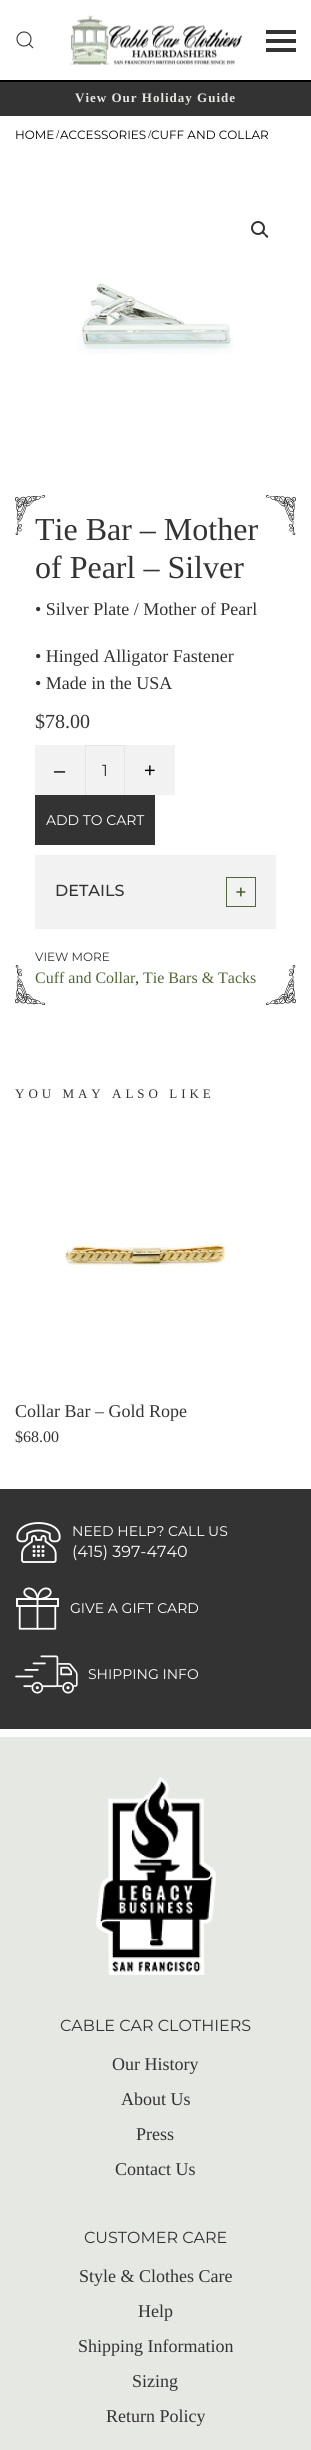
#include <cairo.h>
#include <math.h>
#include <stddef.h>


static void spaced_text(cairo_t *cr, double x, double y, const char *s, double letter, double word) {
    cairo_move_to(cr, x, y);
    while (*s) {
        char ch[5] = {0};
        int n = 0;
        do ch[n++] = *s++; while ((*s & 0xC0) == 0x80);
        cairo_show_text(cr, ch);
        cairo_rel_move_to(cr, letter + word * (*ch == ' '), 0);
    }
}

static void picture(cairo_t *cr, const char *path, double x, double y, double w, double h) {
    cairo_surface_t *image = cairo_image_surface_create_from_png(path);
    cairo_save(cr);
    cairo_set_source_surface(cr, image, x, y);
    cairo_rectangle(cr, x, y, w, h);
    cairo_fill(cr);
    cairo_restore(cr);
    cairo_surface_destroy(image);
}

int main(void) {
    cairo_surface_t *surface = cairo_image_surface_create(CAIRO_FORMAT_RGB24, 311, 2450);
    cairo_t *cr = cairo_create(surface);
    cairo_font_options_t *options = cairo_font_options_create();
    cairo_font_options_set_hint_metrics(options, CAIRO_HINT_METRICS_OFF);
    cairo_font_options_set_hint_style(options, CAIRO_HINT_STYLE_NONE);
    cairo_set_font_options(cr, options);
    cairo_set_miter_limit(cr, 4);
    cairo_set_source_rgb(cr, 1, 1, 1);
    cairo_paint(cr);
    cairo_set_source_rgb(cr, 0, 0, 0);
    cairo_new_path(cr);
    cairo_move_to(cr, 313, 0);
    cairo_line_to(cr, 311, 0);
    cairo_line_to(cr, 311, 80);
    cairo_line_to(cr, 0, 80);
    cairo_line_to(cr, 0, 82);
    cairo_line_to(cr, 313, 82);
    cairo_close_path(cr);
    cairo_fill(cr);
    cairo_arc(cr, 24, 39, 7, 0, 2 * M_PI);
    cairo_set_source_rgb(cr, 0.2, 0.2, 0.2);
    cairo_set_line_width(cr, 1.1);
    cairo_stroke(cr);
    cairo_new_path(cr);
    cairo_move_to(cr, 29, 44);
    cairo_line_to(cr, 33, 48);
    cairo_close_path(cr);
    cairo_stroke(cr);
    picture(cr, "img1.png", 70, 15, 172, 50);
    cairo_rectangle(cr, 266, 30, 30, 4);
    cairo_fill(cr);
    cairo_rectangle(cr, 266, 39, 30, 4);
    cairo_fill(cr);
    cairo_rectangle(cr, 266, 48, 30, 4);
    cairo_fill(cr);
    cairo_rectangle(cr, 0, 82, 311, 34);
    cairo_fill(cr);
    cairo_select_font_face(cr, "Liberation Serif", CAIRO_FONT_SLANT_NORMAL, CAIRO_FONT_WEIGHT_BOLD);
    cairo_set_font_size(cr, 13);
    cairo_set_source_rgb(cr, 0.898, 0.91, 0.89);
    spaced_text(cr, 75, 102, "View Our Holiday Guide", 1, 0);
    cairo_select_font_face(cr, "Montserrat Thin", CAIRO_FONT_SLANT_NORMAL, CAIRO_FONT_WEIGHT_NORMAL);
    cairo_set_font_size(cr, 12);
    cairo_set_source_rgb(cr, 0, 0, 0);
    cairo_move_to(cr, 15, 139);
    cairo_show_text(cr, "HOME");
    cairo_move_to(cr, 60, 139);
    cairo_show_text(cr, "ACCESSORIES");
    cairo_select_font_face(cr, "Liberation Serif", CAIRO_FONT_SLANT_NORMAL, CAIRO_FONT_WEIGHT_NORMAL);
    cairo_move_to(cr, 56, 138);
    cairo_show_text(cr, "/");
    cairo_select_font_face(cr, "Montserrat Thin", CAIRO_FONT_SLANT_NORMAL, CAIRO_FONT_WEIGHT_NORMAL);
    cairo_move_to(cr, 151, 139);
    cairo_show_text(cr, "CUFF AND COLLAR");
    cairo_select_font_face(cr, "Liberation Serif", CAIRO_FONT_SLANT_NORMAL, CAIRO_FONT_WEIGHT_NORMAL);
    cairo_move_to(cr, 148, 138);
    cairo_show_text(cr, "/");
    cairo_new_path(cr);
    cairo_arc(cr, 258, 228, 6, 0, 2 * M_PI);
    cairo_set_source_rgb(cr, 0.2, 0.2, 0.2);
    cairo_set_line_width(cr, 2);
    cairo_stroke(cr);
    cairo_new_path(cr);
    cairo_move_to(cr, 262, 231.5);
    cairo_curve_to(cr, 263.5, 230.5, 265, 233, 265.5, 234);
    cairo_curve_to(cr, 266.5, 234.5, 269, 236, 268, 237.5);
    cairo_curve_to(cr, 266.5, 238.5, 265, 236, 264.5, 235);
    cairo_curve_to(cr, 263.5, 234.5, 261, 233, 262, 231.5);
    cairo_close_path(cr);
    cairo_fill(cr);
    picture(cr, "img2.png", 78, 283, 156, 71);
    picture(cr, "img3.png", 266, 965, 30, 40);
    picture(cr, "img4.png", 15, 965, 30, 40);
    picture(cr, "img5.png", 266, 495, 30, 40);
    picture(cr, "img6.png", 15, 495, 30, 40);
    cairo_set_font_size(cr, 32);
    cairo_move_to(cr, 35, 540);
    cairo_show_text(cr, "Tie Bar – Mother");
    cairo_move_to(cr, 35, 578);
    cairo_show_text(cr, "of Pearl – Silver");
    cairo_set_font_size(cr, 18);
    cairo_move_to(cr, 35, 615);
    cairo_show_text(cr, "• Silver Plate / Mother of Pearl");
    cairo_move_to(cr, 35, 662);
    cairo_show_text(cr, "• Hinged Alligator Fastener");
    cairo_move_to(cr, 35, 689);
    cairo_show_text(cr, "• Made in the USA");
    cairo_set_font_size(cr, 20);
    cairo_move_to(cr, 35, 728);
    cairo_show_text(cr, "$78.00");
    cairo_set_source_rgb(cr, 0.949, 0.949, 0.949);
    cairo_rectangle(cr, 35, 745, 140, 50);
    cairo_fill(cr);
    cairo_select_font_face(cr, "Liberation Sans", CAIRO_FONT_SLANT_NORMAL, CAIRO_FONT_WEIGHT_NORMAL);
    cairo_set_source_rgb(cr, 0, 0, 0);
    cairo_move_to(cr, 54, 777);
    cairo_show_text(cr, "–");
    cairo_set_source_rgb(cr, 0.898, 0.898, 0.906);
    cairo_rectangle(cr, 85, 745, 40, 1);
    cairo_fill(cr);
    cairo_rectangle(cr, 124, 745, 1, 50);
    cairo_fill(cr);
    cairo_rectangle(cr, 85, 745, 1, 50);
    cairo_fill(cr);
    cairo_select_font_face(cr, "Montserrat Thin", CAIRO_FONT_SLANT_NORMAL, CAIRO_FONT_WEIGHT_NORMAL);
    cairo_set_font_size(cr, 16);
    cairo_set_source_rgb(cr, 0.2, 0.2, 0.2);
    cairo_move_to(cr, 102, 776);
    cairo_show_text(cr, "1");
    cairo_select_font_face(cr, "Liberation Sans", CAIRO_FONT_SLANT_NORMAL, CAIRO_FONT_WEIGHT_NORMAL);
    cairo_set_font_size(cr, 20);
    cairo_set_source_rgb(cr, 0, 0, 0);
    cairo_move_to(cr, 144, 777);
    cairo_show_text(cr, "+");
    cairo_set_source_rgb(cr, 0.2, 0.2, 0.2);
    cairo_rectangle(cr, 35, 795, 120, 50);
    cairo_fill(cr);
    cairo_select_font_face(cr, "Montserrat Thin", CAIRO_FONT_SLANT_NORMAL, CAIRO_FONT_WEIGHT_NORMAL);
    cairo_set_font_size(cr, 14);
    cairo_set_source_rgb(cr, 1, 1, 1);
    cairo_move_to(cr, 46, 825);
    cairo_show_text(cr, "ADD TO CART");
    cairo_set_source_rgb(cr, 0.949, 0.949, 0.949);
    cairo_rectangle(cr, 35, 855, 241, 74);
    cairo_fill(cr);
    cairo_select_font_face(cr, "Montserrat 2 Thin", CAIRO_FONT_SLANT_NORMAL, CAIRO_FONT_WEIGHT_NORMAL);
    cairo_set_font_size(cr, 16);
    cairo_set_source_rgb(cr, 0.2, 0.2, 0.2);
    cairo_move_to(cr, 55, 896);
    cairo_show_text(cr, "DETAILS");
    cairo_rectangle(cr, 226.5, 877.5, 29, 29);
    cairo_set_source_rgb(cr, 0.318, 0.404, 0.216);
    cairo_set_line_width(cr, 1);
    cairo_stroke(cr);
    cairo_set_font_size(cr, 20);
    cairo_move_to(cr, 235, 899);
    cairo_show_text(cr, "+");
    cairo_select_font_face(cr, "Montserrat Thin", CAIRO_FONT_SLANT_NORMAL, CAIRO_FONT_WEIGHT_NORMAL);
    cairo_set_font_size(cr, 12);
    cairo_set_source_rgb(cr, 0.2, 0.2, 0.2);
    cairo_move_to(cr, 35, 961);
    cairo_show_text(cr, "VIEW MORE");
    cairo_select_font_face(cr, "Liberation Serif", CAIRO_FONT_SLANT_NORMAL, CAIRO_FONT_WEIGHT_NORMAL);
    cairo_set_font_size(cr, 16);
    cairo_set_source_rgb(cr, 0.318, 0.404, 0.216);
    cairo_move_to(cr, 35, 983);
    cairo_show_text(cr, "Cuff and Collar");
    cairo_set_source_rgb(cr, 0.2, 0.2, 0.2);
    cairo_move_to(cr, 135, 983);
    cairo_show_text(cr, ",");
    cairo_set_source_rgb(cr, 0.318, 0.404, 0.216);
    cairo_move_to(cr, 143, 983);
    cairo_show_text(cr, "Tie Bars & Tacks");
    cairo_set_font_size(cr, 13);
    cairo_set_source_rgb(cr, 0.2, 0.2, 0.2);
    spaced_text(cr, 15, 1098, "YOU MAY ALSO LIKE", 4, 0);
    picture(cr, "img7.png", 64, 1243, 162, 24);
    cairo_set_font_size(cr, 18);
    cairo_move_to(cr, 15, 1417);
    cairo_show_text(cr, "Collar Bar – Gold Rope");
    cairo_set_font_size(cr, 16);
    cairo_move_to(cr, 15, 1442);
    cairo_show_text(cr, "$68.00");
    cairo_rectangle(cr, 0, 1489, 311, 240);
    cairo_fill(cr);
    picture(cr, "img8.png", 16, 1522, 45, 41);
    cairo_select_font_face(cr, "Montserrat Thin", CAIRO_FONT_SLANT_NORMAL, CAIRO_FONT_WEIGHT_NORMAL);
    cairo_set_font_size(cr, 14);
    cairo_set_source_rgb(cr, 1, 1, 1);
    cairo_move_to(cr, 72, 1536);
    cairo_show_text(cr, "NEED HELP? CALL US");
    cairo_set_font_size(cr, 16);
    cairo_move_to(cr, 72, 1557);
    cairo_show_text(cr, "(415) 397-4740");
    picture(cr, "img9.png", 16, 1587, 43, 43);
    cairo_set_font_size(cr, 14);
    cairo_move_to(cr, 70, 1613);
    cairo_show_text(cr, "GIVE A GIFT CARD");
    picture(cr, "img10.png", 15, 1655, 63, 39);
    cairo_move_to(cr, 88, 1679);
    cairo_show_text(cr, "SHIPPING INFO");
    cairo_set_source_rgb(cr, 0.898, 0.91, 0.89);
    cairo_rectangle(cr, 0, 1737, 311, 713);
    cairo_fill(cr);
    picture(cr, "img11.png", 96, 1777, 120, 198);
    cairo_set_font_size(cr, 16);
    cairo_set_source_rgb(cr, 0.2, 0.2, 0.2);
    cairo_move_to(cr, 60, 2031);
    cairo_show_text(cr, "CABLE CAR CLOTHIERS");
    cairo_select_font_face(cr, "Liberation Serif", CAIRO_FONT_SLANT_NORMAL, CAIRO_FONT_WEIGHT_NORMAL);
    cairo_set_font_size(cr, 18);
    cairo_move_to(cr, 112, 2070);
    cairo_show_text(cr, "Our History");
    cairo_move_to(cr, 121, 2105);
    cairo_show_text(cr, "About Us");
    cairo_move_to(cr, 136, 2140);
    cairo_show_text(cr, "Press");
    cairo_move_to(cr, 115, 2175);
    cairo_show_text(cr, "Contact Us");
    cairo_select_font_face(cr, "Montserrat Thin", CAIRO_FONT_SLANT_NORMAL, CAIRO_FONT_WEIGHT_NORMAL);
    cairo_set_font_size(cr, 16);
    cairo_move_to(cr, 84, 2243);
    cairo_show_text(cr, "CUSTOMER CARE");
    cairo_select_font_face(cr, "Liberation Serif", CAIRO_FONT_SLANT_NORMAL, CAIRO_FONT_WEIGHT_NORMAL);
    cairo_set_font_size(cr, 18);
    cairo_move_to(cr, 79, 2282);
    cairo_show_text(cr, "Style & Clothes Care");
    cairo_move_to(cr, 138, 2317);
    cairo_show_text(cr, "Help");
    cairo_move_to(cr, 78, 2352);
    cairo_show_text(cr, "Shipping Information");
    cairo_move_to(cr, 132, 2387);
    cairo_show_text(cr, "Sizing");
    cairo_move_to(cr, 106, 2422);
    cairo_show_text(cr, "Return Policy");
    cairo_surface_write_to_png(surface, "page.png");
    cairo_font_options_destroy(options);
    cairo_destroy(cr);
    cairo_surface_destroy(surface);
    return 0;
}
